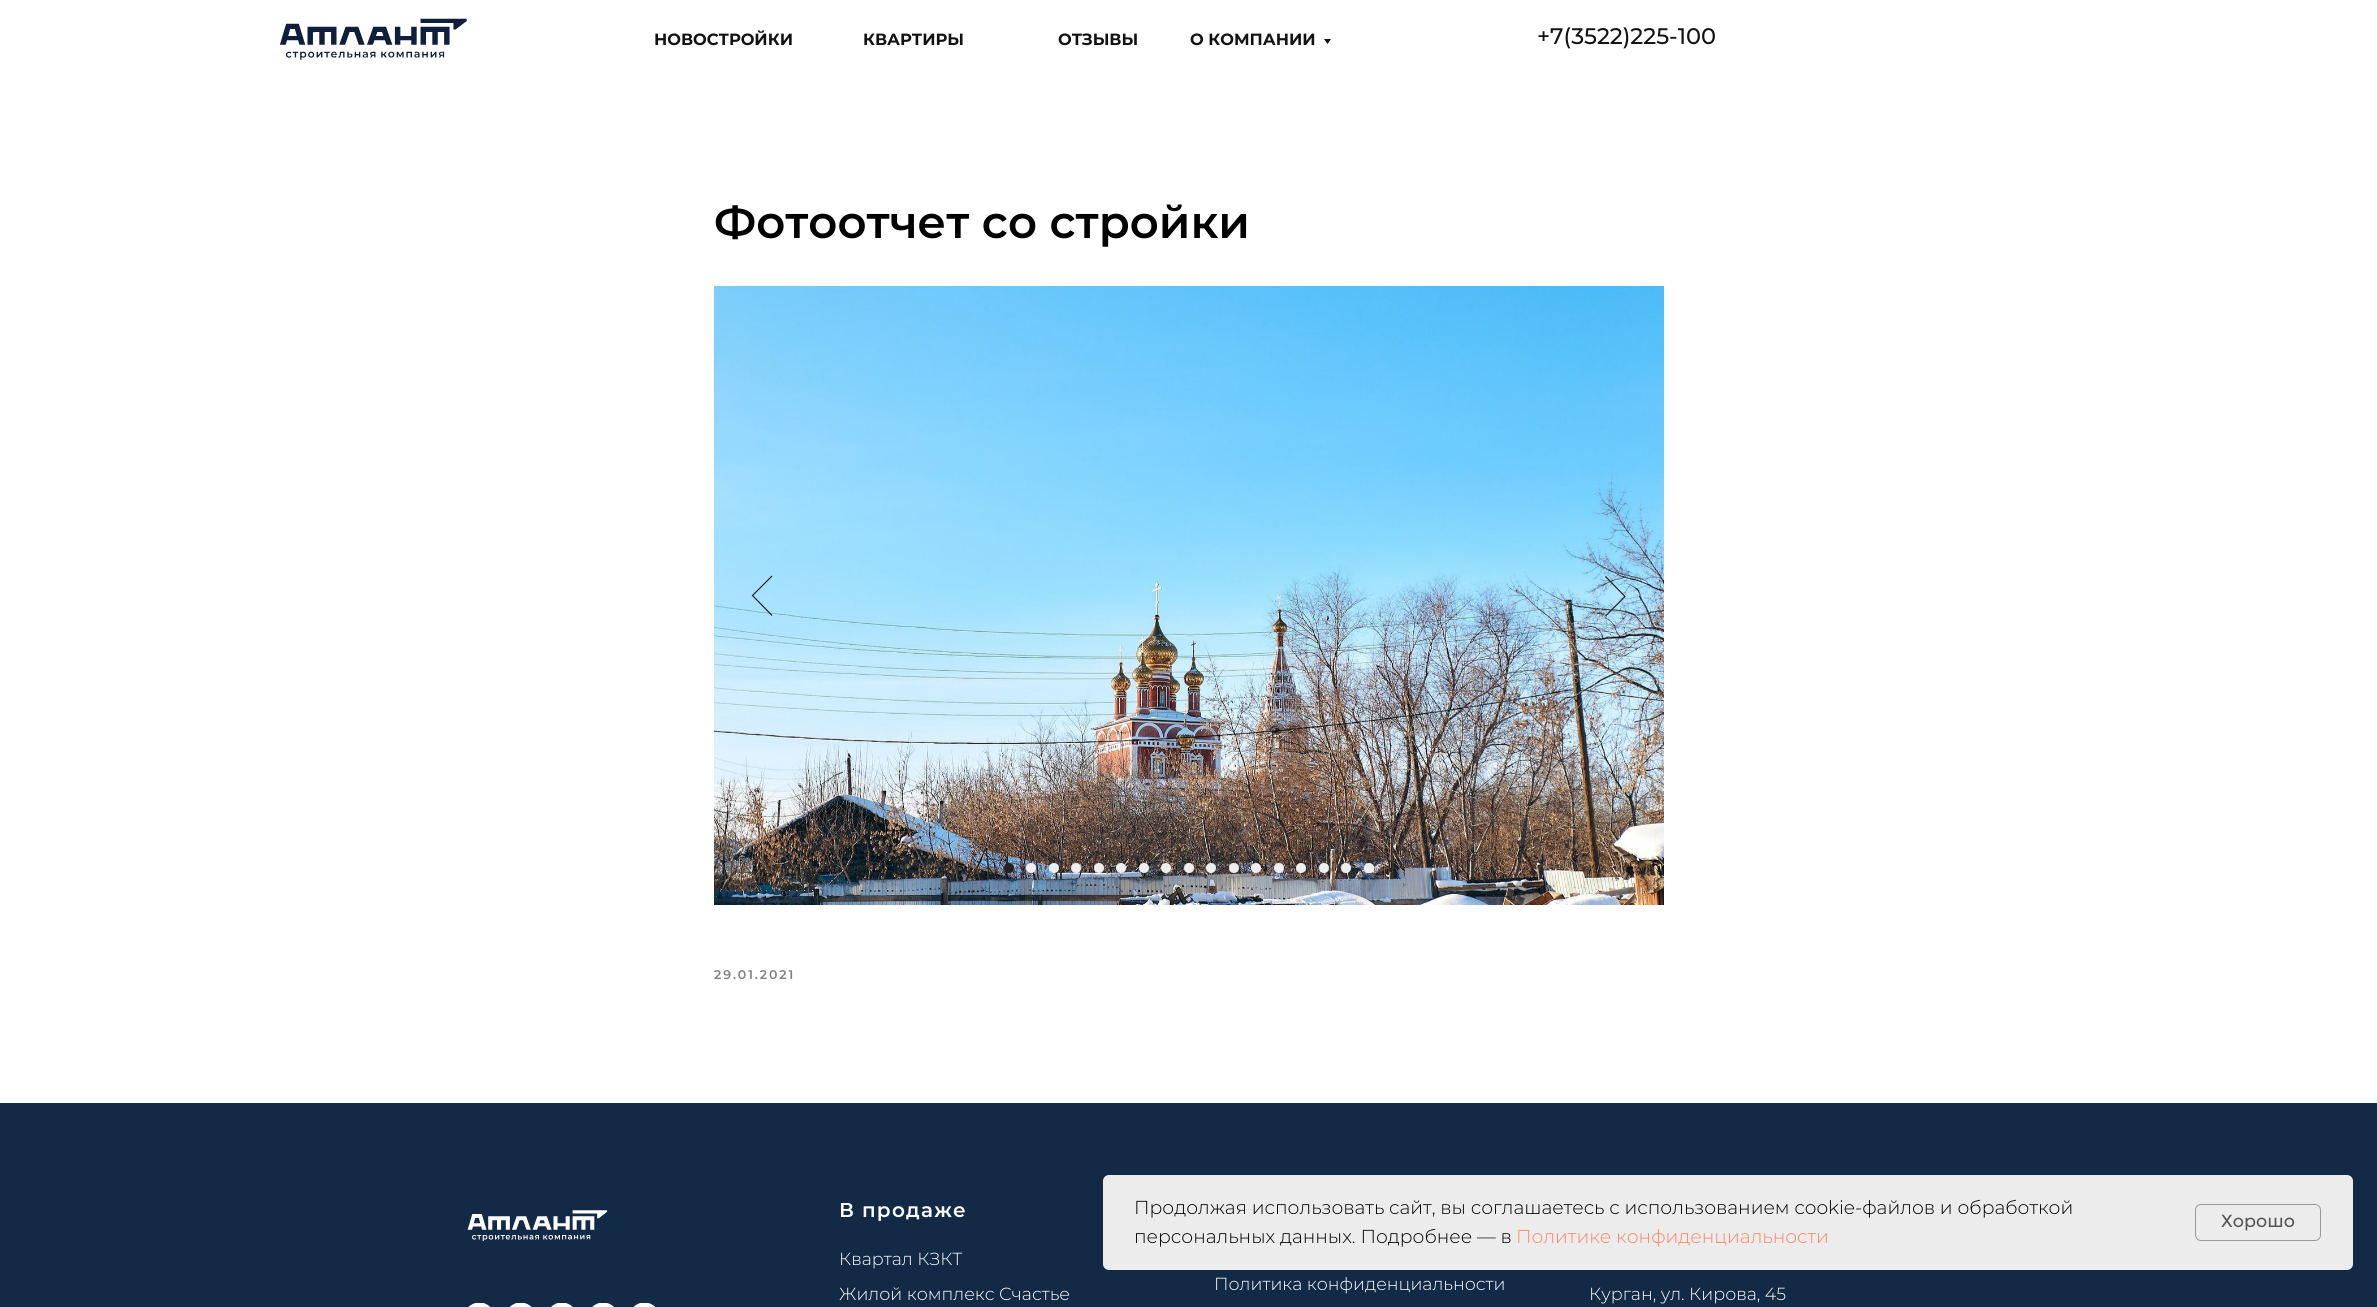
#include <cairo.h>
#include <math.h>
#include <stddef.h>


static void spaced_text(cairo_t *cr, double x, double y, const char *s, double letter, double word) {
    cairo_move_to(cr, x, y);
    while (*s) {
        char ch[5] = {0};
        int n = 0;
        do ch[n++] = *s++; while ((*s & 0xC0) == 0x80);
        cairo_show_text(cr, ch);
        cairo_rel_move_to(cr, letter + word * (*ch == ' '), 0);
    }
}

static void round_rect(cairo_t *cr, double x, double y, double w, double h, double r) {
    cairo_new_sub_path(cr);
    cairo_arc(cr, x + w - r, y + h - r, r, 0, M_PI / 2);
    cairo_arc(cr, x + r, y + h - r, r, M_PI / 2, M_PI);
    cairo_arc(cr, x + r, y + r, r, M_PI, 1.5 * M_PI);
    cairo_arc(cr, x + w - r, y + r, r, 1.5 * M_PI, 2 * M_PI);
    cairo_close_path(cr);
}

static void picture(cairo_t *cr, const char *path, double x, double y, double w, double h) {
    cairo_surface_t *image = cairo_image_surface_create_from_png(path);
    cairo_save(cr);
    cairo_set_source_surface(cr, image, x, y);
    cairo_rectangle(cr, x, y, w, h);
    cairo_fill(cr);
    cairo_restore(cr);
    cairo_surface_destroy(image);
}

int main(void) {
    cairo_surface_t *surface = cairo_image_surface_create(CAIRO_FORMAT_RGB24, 2377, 1307);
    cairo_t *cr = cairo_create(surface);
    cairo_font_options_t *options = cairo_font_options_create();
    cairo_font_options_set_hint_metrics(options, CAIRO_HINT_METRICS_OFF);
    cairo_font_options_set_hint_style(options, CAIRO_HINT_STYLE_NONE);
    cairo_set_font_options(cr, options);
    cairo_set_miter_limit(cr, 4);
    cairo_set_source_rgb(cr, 1, 1, 1);
    cairo_paint(cr);
    picture(cr, "img1.png", 280, 18, 187, 42);
    cairo_select_font_face(cr, "Montserrat", CAIRO_FONT_SLANT_NORMAL, CAIRO_FONT_WEIGHT_BOLD);
    cairo_set_font_size(cr, 16.25);
    cairo_set_source_rgb(cr, 0.078, 0.078, 0.078);
    cairo_move_to(cr, 654, 45);
    cairo_show_text(cr, "НОВОСТРОЙКИ");
    cairo_move_to(cr, 863, 45);
    cairo_show_text(cr, "КВАРТИРЫ");
    cairo_move_to(cr, 1058, 45);
    cairo_show_text(cr, "ОТЗЫВЫ");
    cairo_move_to(cr, 1190, 45);
    cairo_show_text(cr, "О КОМПАНИИ");
    cairo_new_path(cr);
    cairo_move_to(cr, 1324, 39);
    cairo_line_to(cr, 1331, 39);
    cairo_line_to(cr, 1327.5, 44);
    cairo_close_path(cr);
    cairo_fill(cr);
    cairo_select_font_face(cr, "Montserrat Medium", CAIRO_FONT_SLANT_NORMAL, CAIRO_FONT_WEIGHT_NORMAL);
    cairo_set_font_size(cr, 22.5);
    cairo_move_to(cr, 1537, 44);
    cairo_show_text(cr, "+7(3522)225-100");
    cairo_select_font_face(cr, "Montserrat SemiBold", CAIRO_FONT_SLANT_NORMAL, CAIRO_FONT_WEIGHT_NORMAL);
    cairo_set_font_size(cr, 45);
    cairo_set_source_rgb(cr, 0, 0, 0);
    cairo_move_to(cr, 714, 238);
    cairo_show_text(cr, "Фотоотчет со стройки");
    picture(cr, "img2.png", 714, 286, 950, 619);
    cairo_new_path(cr);
    cairo_move_to(cr, 772, 615.5);
    cairo_line_to(cr, 752.5, 595.5);
    cairo_line_to(cr, 772, 576);
    cairo_set_source_rgb(cr, 0.133, 0.133, 0.133);
    cairo_set_line_width(cr, 1.2);
    cairo_stroke(cr);
    cairo_new_path(cr);
    cairo_move_to(cr, 1605.5, 576.5);
    cairo_line_to(cr, 1625, 596.5);
    cairo_line_to(cr, 1605.5, 616);
    cairo_stroke(cr);
    cairo_arc(cr, 1009, 868, 5, 0, 2 * M_PI);
    cairo_fill(cr);
    cairo_set_source_rgb(cr, 0.933, 0.933, 0.933);
    cairo_arc(cr, 1031, 868, 5, 0, 2 * M_PI);
    cairo_fill(cr);
    cairo_arc(cr, 1054, 868, 5, 0, 2 * M_PI);
    cairo_fill(cr);
    cairo_arc(cr, 1076, 868, 5, 0, 2 * M_PI);
    cairo_fill(cr);
    cairo_arc(cr, 1099, 868, 5, 0, 2 * M_PI);
    cairo_fill(cr);
    cairo_arc(cr, 1121, 868, 5, 0, 2 * M_PI);
    cairo_fill(cr);
    cairo_arc(cr, 1144, 868, 5, 0, 2 * M_PI);
    cairo_fill(cr);
    cairo_arc(cr, 1166, 868, 5, 0, 2 * M_PI);
    cairo_fill(cr);
    cairo_arc(cr, 1189, 868, 5, 0, 2 * M_PI);
    cairo_fill(cr);
    cairo_arc(cr, 1211, 868, 5, 0, 2 * M_PI);
    cairo_fill(cr);
    cairo_arc(cr, 1234, 868, 5, 0, 2 * M_PI);
    cairo_fill(cr);
    cairo_arc(cr, 1256, 868, 5, 0, 2 * M_PI);
    cairo_fill(cr);
    cairo_arc(cr, 1279, 868, 5, 0, 2 * M_PI);
    cairo_fill(cr);
    cairo_arc(cr, 1301, 868, 5, 0, 2 * M_PI);
    cairo_fill(cr);
    cairo_arc(cr, 1324, 868, 5, 0, 2 * M_PI);
    cairo_fill(cr);
    cairo_arc(cr, 1346, 868, 5, 0, 2 * M_PI);
    cairo_fill(cr);
    cairo_arc(cr, 1369, 868, 5, 0, 2 * M_PI);
    cairo_fill(cr);
    cairo_set_font_size(cr, 12.5);
    cairo_set_source_rgb(cr, 0.502, 0.502, 0.502);
    spaced_text(cr, 714, 979, "29.01.2021", 1.9, 0);
    cairo_set_source_rgb(cr, 0.078, 0.165, 0.278);
    cairo_rectangle(cr, 0, 1103, 2377, 204);
    cairo_fill(cr);
    cairo_set_source_rgb(cr, 0.922, 0.922, 0.922);
    round_rect(cr, 1103, 1175, 1250, 95, 6);
    cairo_fill(cr);
    cairo_select_font_face(cr, "Montserrat Light", CAIRO_FONT_SLANT_NORMAL, CAIRO_FONT_WEIGHT_NORMAL);
    cairo_set_font_size(cr, 18.75);
    cairo_set_source_rgb(cr, 0, 0, 0);
    cairo_move_to(cr, 1134, 1214);
    cairo_show_text(cr, "Продолжая использовать сайт, вы соглашаетесь с использованием cookie-файлов и обработкой");
    cairo_move_to(cr, 1134, 1243);
    cairo_show_text(cr, "персональных данных. Подробнее — в");
    cairo_set_source_rgb(cr, 1, 0.522, 0.384);
    cairo_move_to(cr, 1516, 1243);
    cairo_show_text(cr, "Политике конфиденциальности");
    round_rect(cr, 2195.5, 1204.5, 125, 36, 5.5);
    cairo_set_source_rgb(cr, 0.6, 0.6, 0.6);
    cairo_set_line_width(cr, 1);
    cairo_stroke(cr);
    cairo_select_font_face(cr, "Montserrat Medium", CAIRO_FONT_SLANT_NORMAL, CAIRO_FONT_WEIGHT_NORMAL);
    cairo_set_font_size(cr, 17.5);
    cairo_set_source_rgb(cr, 0.333, 0.333, 0.333);
    cairo_move_to(cr, 2221, 1227);
    cairo_show_text(cr, "Хорошо");
    picture(cr, "img3.png", 467, 1210, 141, 31);
    picture(cr, "img4.png", 468, 1303, 23, 4);
    picture(cr, "img5.png", 509, 1303, 23, 4);
    picture(cr, "img6.png", 551, 1303, 22, 4);
    picture(cr, "img7.png", 592, 1303, 22, 4);
    picture(cr, "img4.png", 633, 1303, 23, 4);
    cairo_select_font_face(cr, "Montserrat SemiBold", CAIRO_FONT_SLANT_NORMAL, CAIRO_FONT_WEIGHT_NORMAL);
    cairo_set_font_size(cr, 20);
    cairo_set_source_rgb(cr, 1, 1, 1);
    spaced_text(cr, 839, 1217, "В продаже", 1.25, 0);
    cairo_select_font_face(cr, "Montserrat Light", CAIRO_FONT_SLANT_NORMAL, CAIRO_FONT_WEIGHT_NORMAL);
    cairo_set_font_size(cr, 17.5);
    cairo_move_to(cr, 839, 1265);
    cairo_show_text(cr, "Квартал КЗКТ");
    cairo_move_to(cr, 839, 1300);
    cairo_show_text(cr, "Жилой комплекс Счастье");
    cairo_move_to(cr, 1214, 1290);
    cairo_show_text(cr, "Политика конфиденциальности");
    cairo_move_to(cr, 1589, 1300);
    cairo_show_text(cr, "Курган, ул. Кирова, 45");
    cairo_surface_write_to_png(surface, "page.png");
    cairo_font_options_destroy(options);
    cairo_destroy(cr);
    cairo_surface_destroy(surface);
    return 0;
}
